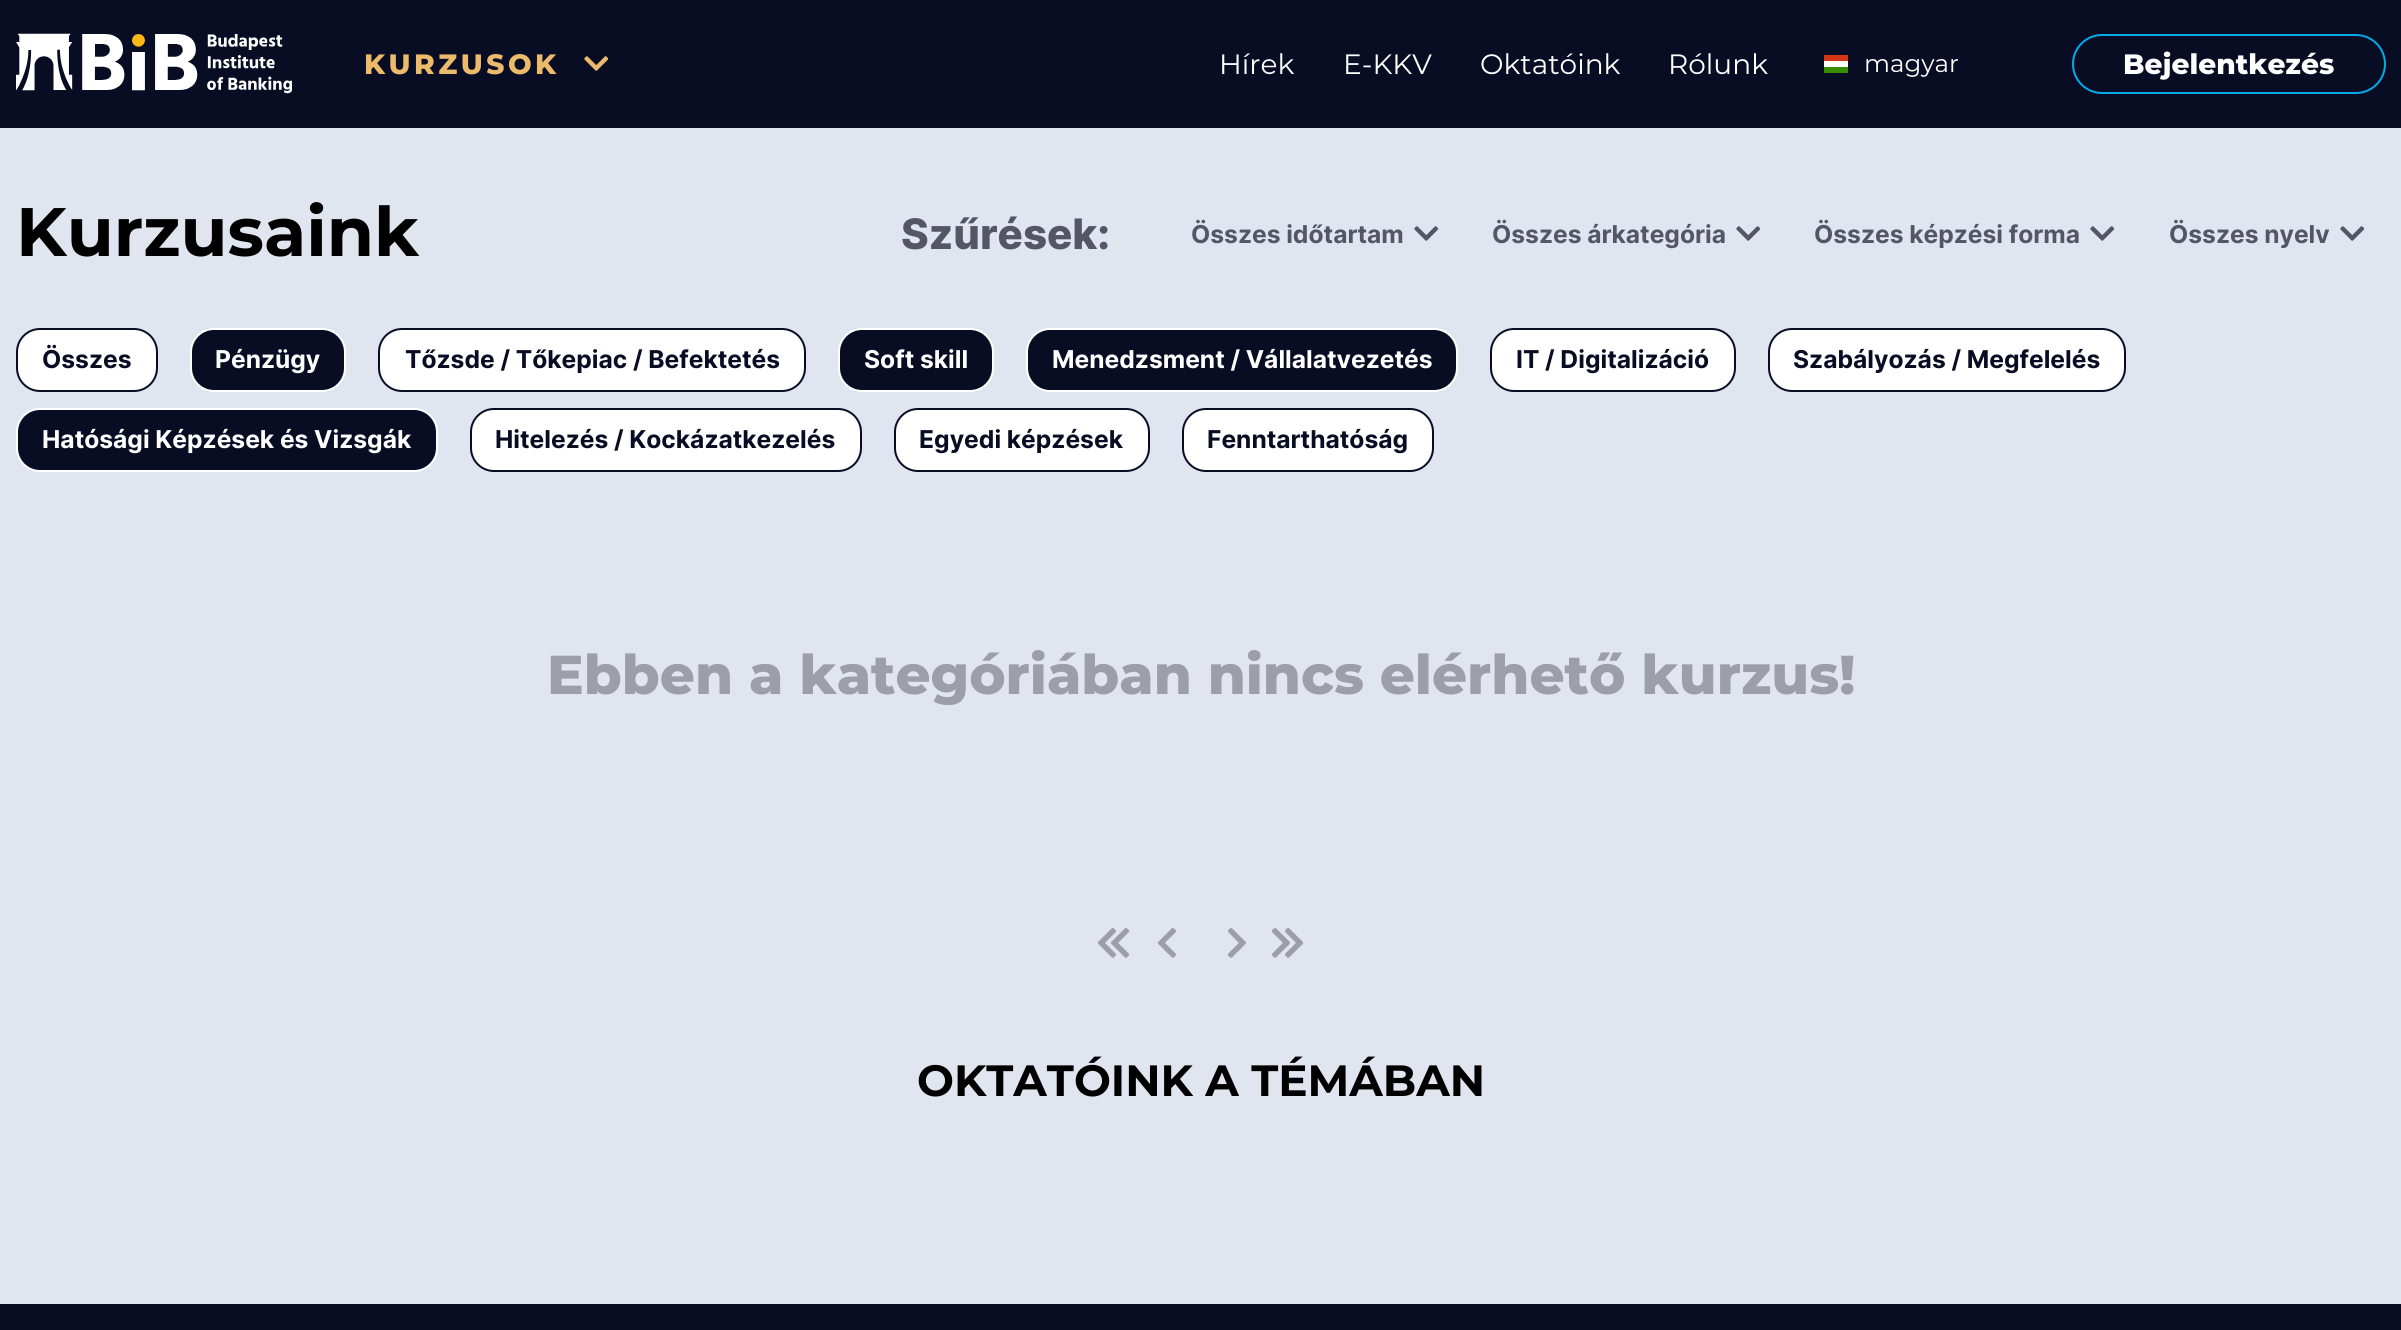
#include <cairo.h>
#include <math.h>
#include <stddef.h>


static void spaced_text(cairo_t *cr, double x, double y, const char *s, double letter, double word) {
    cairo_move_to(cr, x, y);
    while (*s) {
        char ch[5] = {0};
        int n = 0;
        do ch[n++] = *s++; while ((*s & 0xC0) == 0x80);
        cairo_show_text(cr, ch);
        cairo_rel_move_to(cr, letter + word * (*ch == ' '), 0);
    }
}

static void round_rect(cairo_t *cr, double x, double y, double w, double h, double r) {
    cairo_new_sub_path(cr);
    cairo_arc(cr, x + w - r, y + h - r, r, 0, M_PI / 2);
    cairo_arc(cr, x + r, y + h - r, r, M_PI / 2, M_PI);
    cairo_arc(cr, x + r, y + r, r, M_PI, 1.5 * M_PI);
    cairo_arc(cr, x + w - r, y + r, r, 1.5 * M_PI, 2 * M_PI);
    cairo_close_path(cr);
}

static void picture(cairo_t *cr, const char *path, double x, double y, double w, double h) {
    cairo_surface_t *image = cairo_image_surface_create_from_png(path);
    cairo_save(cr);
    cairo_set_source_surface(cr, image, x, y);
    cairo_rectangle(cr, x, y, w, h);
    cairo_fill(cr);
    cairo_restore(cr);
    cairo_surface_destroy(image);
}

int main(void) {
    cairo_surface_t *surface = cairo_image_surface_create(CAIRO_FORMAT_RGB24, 2401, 1330);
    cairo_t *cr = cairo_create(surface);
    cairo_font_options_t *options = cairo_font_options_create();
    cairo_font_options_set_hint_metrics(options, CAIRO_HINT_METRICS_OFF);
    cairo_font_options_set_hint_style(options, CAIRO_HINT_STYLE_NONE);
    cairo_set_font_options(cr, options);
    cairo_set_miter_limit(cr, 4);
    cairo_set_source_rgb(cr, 0.878, 0.898, 0.941);
    cairo_paint(cr);
    cairo_set_source_rgb(cr, 0.039, 0.051, 0.141);
    cairo_rectangle(cr, 0, 0, 2401, 128);
    cairo_fill(cr);
    picture(cr, "img1.png", 16, 33, 276, 61);
    cairo_select_font_face(cr, "Montserrat ExtraBold", CAIRO_FONT_SLANT_NORMAL, CAIRO_FONT_WEIGHT_NORMAL);
    cairo_set_font_size(cr, 28);
    cairo_set_source_rgb(cr, 0.918, 0.729, 0.42);
    spaced_text(cr, 364, 74, "KURZUSOK", 3.5, 0);
    picture(cr, "img2.png", 584, 56, 25, 15);
    cairo_select_font_face(cr, "Montserrat", CAIRO_FONT_SLANT_NORMAL, CAIRO_FONT_WEIGHT_NORMAL);
    cairo_set_source_rgb(cr, 1, 1, 1);
    cairo_move_to(cr, 1219, 74);
    cairo_show_text(cr, "Hírek");
    cairo_move_to(cr, 1343, 74);
    cairo_show_text(cr, "E-KKV");
    cairo_move_to(cr, 1480, 74);
    cairo_show_text(cr, "Oktatóink");
    cairo_move_to(cr, 1668, 74);
    cairo_show_text(cr, "Rólunk");
    cairo_rectangle(cr, 1824, 61, 24, 6);
    cairo_fill(cr);
    cairo_set_source_rgb(cr, 0.22, 0.553, 0);
    cairo_rectangle(cr, 1824, 67, 24, 6);
    cairo_fill(cr);
    cairo_set_source_rgb(cr, 0.831, 0.208, 0.086);
    cairo_rectangle(cr, 1824, 55, 24, 6);
    cairo_fill(cr);
    cairo_set_font_size(cr, 24.5);
    cairo_set_source_rgb(cr, 1, 1, 1);
    cairo_move_to(cr, 1864, 72);
    cairo_show_text(cr, "magyar");
    round_rect(cr, 2073, 35, 312, 58, 29);
    cairo_set_source_rgb(cr, 0, 0.671, 0.906);
    cairo_stroke(cr);
    cairo_select_font_face(cr, "Montserrat ExtraBold", CAIRO_FONT_SLANT_NORMAL, CAIRO_FONT_WEIGHT_NORMAL);
    cairo_set_font_size(cr, 28);
    cairo_set_source_rgb(cr, 1, 1, 1);
    cairo_move_to(cr, 2123, 74);
    cairo_show_text(cr, "Bejelentkezés");
    cairo_select_font_face(cr, "Montserrat", CAIRO_FONT_SLANT_NORMAL, CAIRO_FONT_WEIGHT_BOLD);
    cairo_set_font_size(cr, 68.5);
    cairo_set_source_rgb(cr, 0, 0, 0);
    cairo_move_to(cr, 16, 256);
    cairo_show_text(cr, "Kurzusaink");
    cairo_select_font_face(cr, "Inter ExtraBold", CAIRO_FONT_SLANT_NORMAL, CAIRO_FONT_WEIGHT_NORMAL);
    cairo_set_font_size(cr, 42);
    cairo_set_source_rgb(cr, 0.329, 0.337, 0.4);
    cairo_move_to(cr, 901, 249);
    cairo_show_text(cr, "Szűrések:");
    cairo_select_font_face(cr, "Inter", CAIRO_FONT_SLANT_NORMAL, CAIRO_FONT_WEIGHT_BOLD);
    cairo_set_font_size(cr, 24.6);
    cairo_move_to(cr, 1191, 243);
    cairo_show_text(cr, "Összes időtartam");
    picture(cr, "img3.png", 1414, 226, 25, 15);
    cairo_move_to(cr, 1492, 243);
    cairo_show_text(cr, "Összes árkategória");
    picture(cr, "img3.png", 1736, 226, 25, 15);
    cairo_move_to(cr, 1814, 243);
    cairo_show_text(cr, "Összes képzési forma");
    picture(cr, "img3.png", 2090, 226, 25, 15);
    cairo_move_to(cr, 2169, 243);
    cairo_show_text(cr, "Összes nyelv");
    picture(cr, "img3.png", 2340, 226, 25, 15);
    cairo_set_source_rgb(cr, 1, 1, 1);
    round_rect(cr, 17, 329, 140, 62, 23);
    cairo_fill_preserve(cr);
    cairo_set_source_rgb(cr, 0.039, 0.051, 0.141);
    cairo_stroke(cr);
    cairo_move_to(cr, 42, 368);
    cairo_show_text(cr, "Összes");
    round_rect(cr, 191, 329, 154, 62, 23);
    cairo_fill_preserve(cr);
    cairo_set_source_rgb(cr, 1, 1, 1);
    cairo_stroke(cr);
    cairo_move_to(cr, 215, 368);
    cairo_show_text(cr, "Pénzügy");
    round_rect(cr, 379, 329, 426, 62, 23);
    cairo_fill_preserve(cr);
    cairo_set_source_rgb(cr, 0.039, 0.051, 0.141);
    cairo_stroke(cr);
    cairo_move_to(cr, 405, 368);
    cairo_show_text(cr, "Tőzsde / Tőkepiac / Befektetés");
    round_rect(cr, 839, 329, 154, 62, 23);
    cairo_fill_preserve(cr);
    cairo_set_source_rgb(cr, 1, 1, 1);
    cairo_stroke(cr);
    cairo_move_to(cr, 864, 368);
    cairo_show_text(cr, "Soft skill");
    cairo_set_source_rgb(cr, 0.039, 0.051, 0.141);
    round_rect(cr, 1027, 329, 430, 62, 23);
    cairo_fill_preserve(cr);
    cairo_set_source_rgb(cr, 1, 1, 1);
    cairo_stroke(cr);
    cairo_move_to(cr, 1052, 368);
    cairo_show_text(cr, "Menedzsment / Vállalatvezetés");
    round_rect(cr, 1491, 329, 244, 62, 23);
    cairo_fill_preserve(cr);
    cairo_set_source_rgb(cr, 0.039, 0.051, 0.141);
    cairo_stroke(cr);
    cairo_move_to(cr, 1516, 368);
    cairo_show_text(cr, "IT / Digitalizáció");
    cairo_set_source_rgb(cr, 1, 1, 1);
    round_rect(cr, 1769, 329, 356, 62, 23);
    cairo_fill_preserve(cr);
    cairo_set_source_rgb(cr, 0.039, 0.051, 0.141);
    cairo_stroke(cr);
    cairo_move_to(cr, 1793, 368);
    cairo_show_text(cr, "Szabályozás / Megfelelés");
    round_rect(cr, 17, 409, 420, 62, 23);
    cairo_fill_preserve(cr);
    cairo_set_source_rgb(cr, 1, 1, 1);
    cairo_stroke(cr);
    cairo_move_to(cr, 42, 448);
    cairo_show_text(cr, "Hatósági Képzések és Vizsgák");
    round_rect(cr, 471, 409, 390, 62, 23);
    cairo_fill_preserve(cr);
    cairo_set_source_rgb(cr, 0.039, 0.051, 0.141);
    cairo_stroke(cr);
    cairo_move_to(cr, 495, 448);
    cairo_show_text(cr, "Hitelezés / Kockázatkezelés");
    cairo_set_source_rgb(cr, 1, 1, 1);
    round_rect(cr, 895, 409, 254, 62, 23);
    cairo_fill_preserve(cr);
    cairo_set_source_rgb(cr, 0.039, 0.051, 0.141);
    cairo_stroke(cr);
    cairo_move_to(cr, 919, 448);
    cairo_show_text(cr, "Egyedi képzések");
    cairo_set_source_rgb(cr, 1, 1, 1);
    round_rect(cr, 1183, 409, 250, 62, 23);
    cairo_fill_preserve(cr);
    cairo_set_source_rgb(cr, 0.039, 0.051, 0.141);
    cairo_stroke(cr);
    cairo_move_to(cr, 1207, 448);
    cairo_show_text(cr, "Fenntarthatóság");
    cairo_select_font_face(cr, "Montserrat ExtraBold", CAIRO_FONT_SLANT_NORMAL, CAIRO_FONT_WEIGHT_NORMAL);
    cairo_set_font_size(cr, 54.7);
    cairo_set_source_rgb(cr, 0.616, 0.62, 0.655);
    cairo_move_to(cr, 547, 694);
    cairo_show_text(cr, "Ebben a kategóriában nincs elérhető kurzus!");
    picture(cr, "img4.png", 1098, 928, 31, 30);
    picture(cr, "img5.png", 1157, 928, 19, 30);
    picture(cr, "img6.png", 1227, 928, 19, 30);
    picture(cr, "img7.png", 1271, 928, 32, 30);
    cairo_select_font_face(cr, "Montserrat", CAIRO_FONT_SLANT_NORMAL, CAIRO_FONT_WEIGHT_BOLD);
    cairo_set_font_size(cr, 43.75);
    cairo_set_source_rgb(cr, 0, 0, 0);
    cairo_move_to(cr, 917, 1096);
    cairo_show_text(cr, "OKTATÓINK A TÉMÁBAN");
    cairo_set_source_rgb(cr, 0.039, 0.051, 0.141);
    cairo_rectangle(cr, 0, 1304, 2401, 26);
    cairo_fill(cr);
    cairo_surface_write_to_png(surface, "page.png");
    cairo_font_options_destroy(options);
    cairo_destroy(cr);
    cairo_surface_destroy(surface);
    return 0;
}
